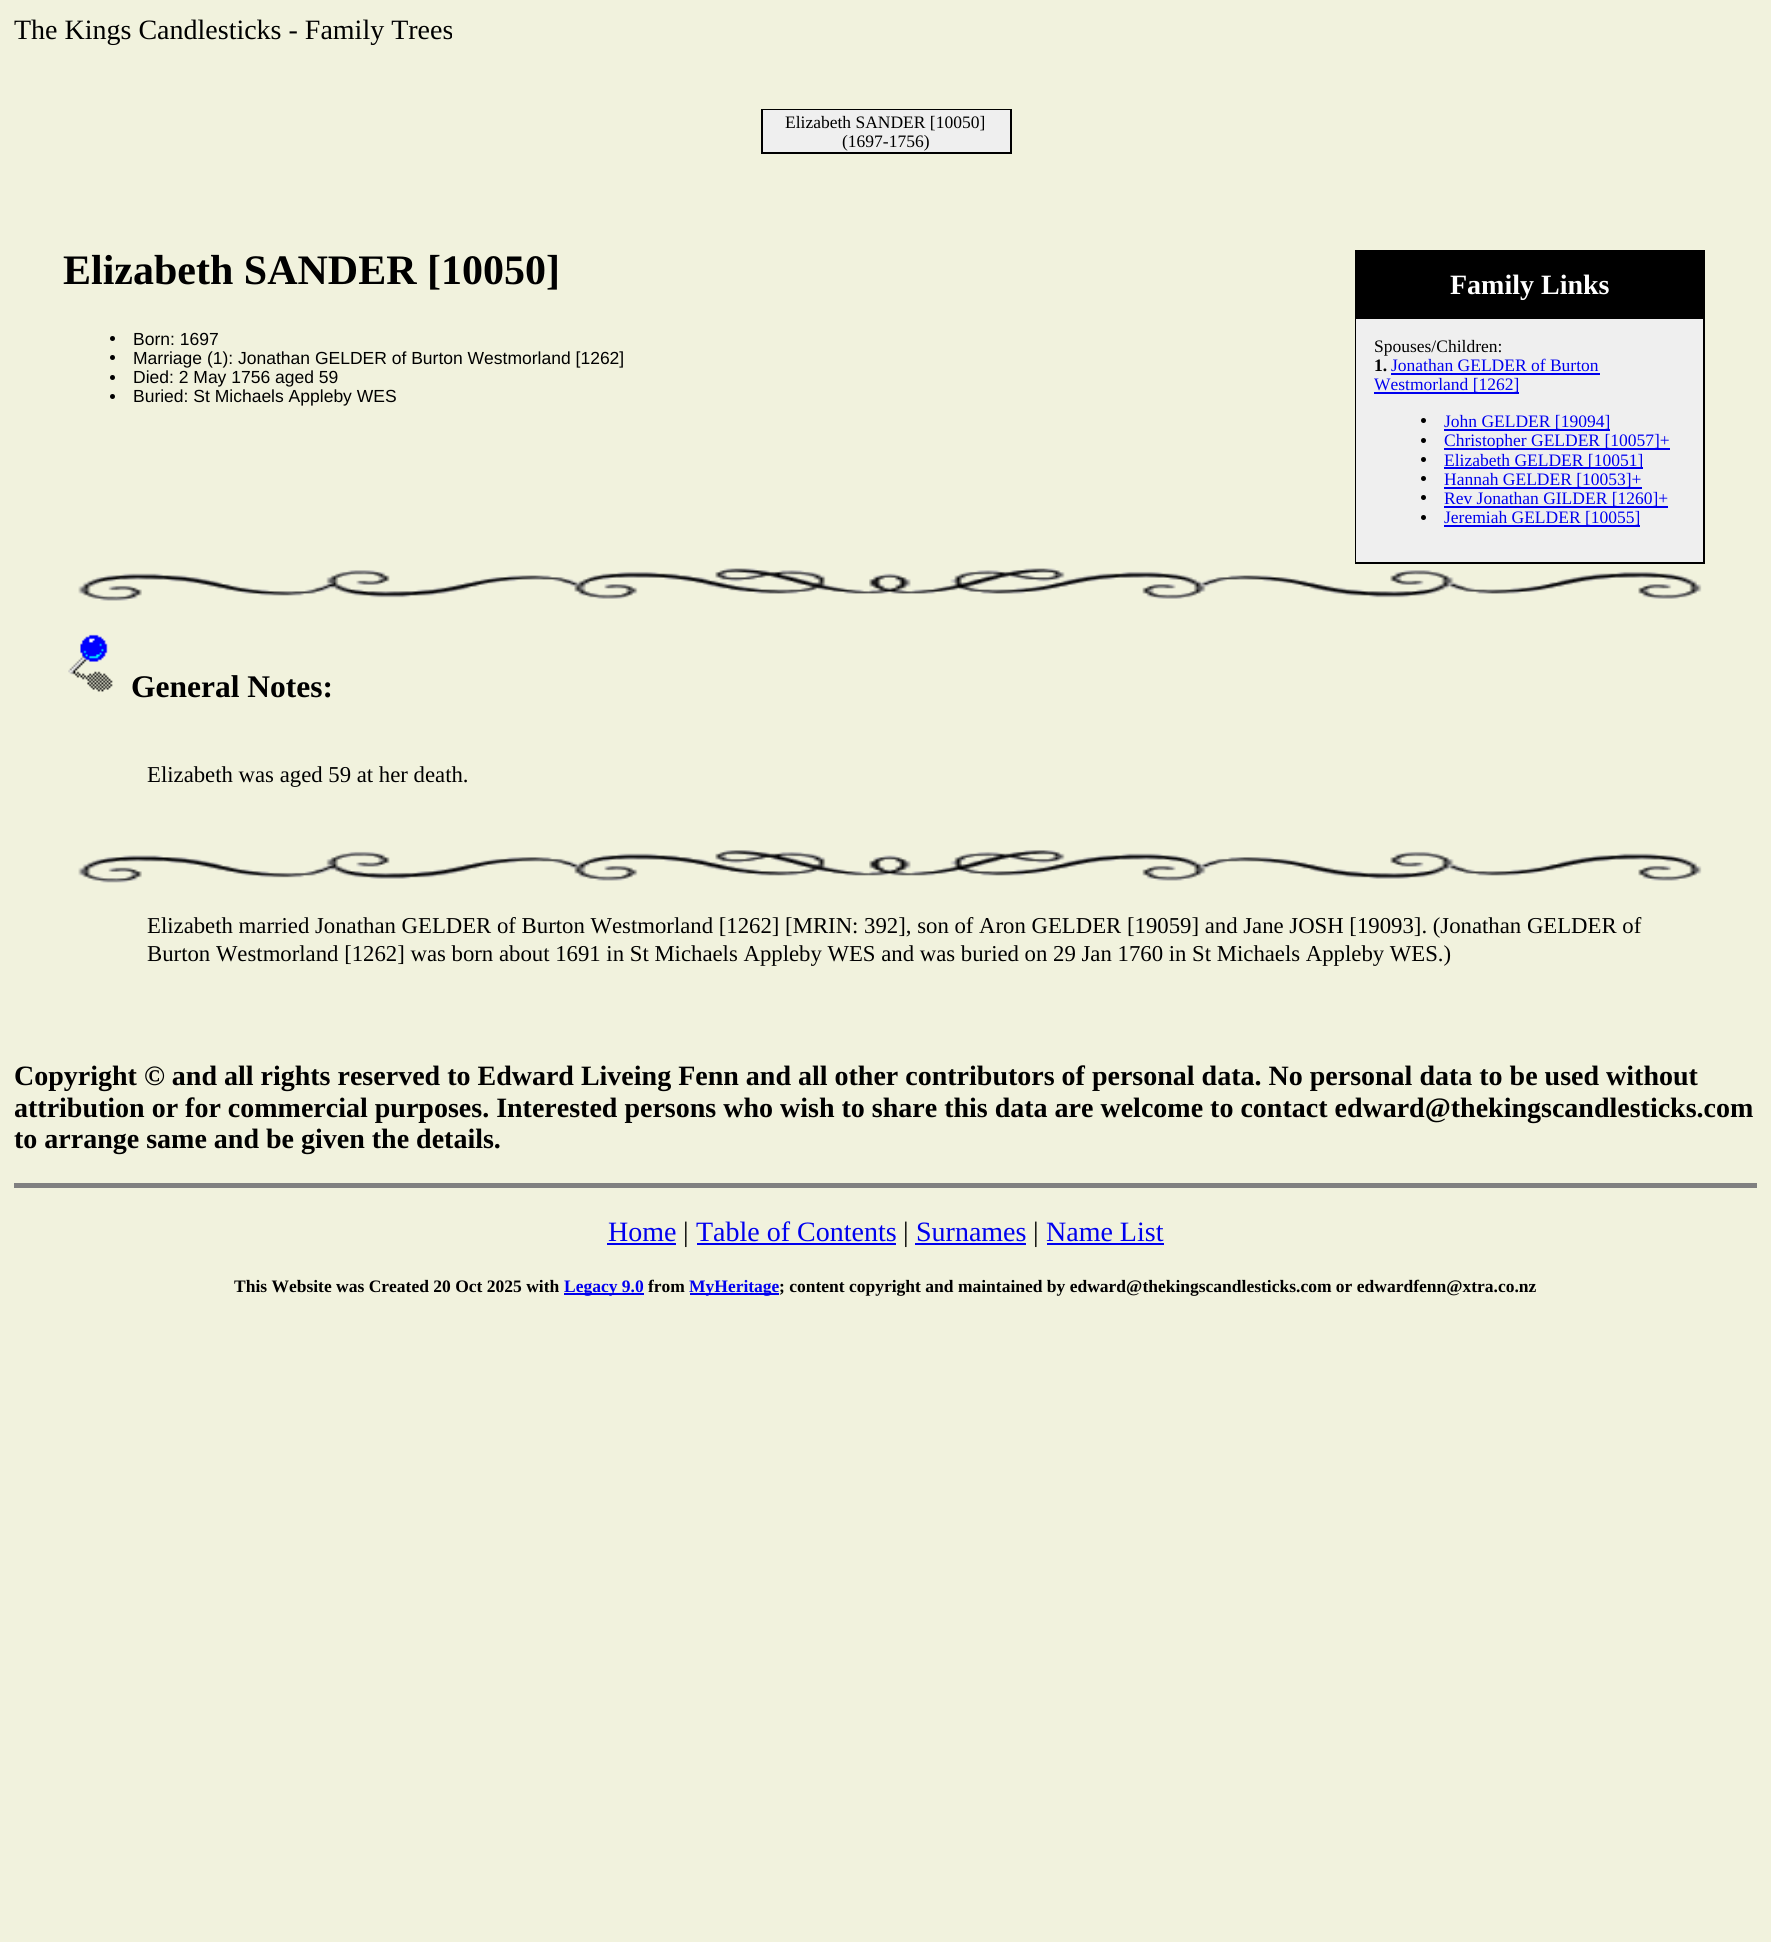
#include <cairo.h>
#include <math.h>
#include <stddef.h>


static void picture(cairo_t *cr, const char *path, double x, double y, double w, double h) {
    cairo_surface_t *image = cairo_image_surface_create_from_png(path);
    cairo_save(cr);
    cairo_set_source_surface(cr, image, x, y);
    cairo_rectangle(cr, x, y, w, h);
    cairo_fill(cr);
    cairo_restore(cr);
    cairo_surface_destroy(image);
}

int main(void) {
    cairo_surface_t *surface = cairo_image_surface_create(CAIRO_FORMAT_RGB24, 1771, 1942);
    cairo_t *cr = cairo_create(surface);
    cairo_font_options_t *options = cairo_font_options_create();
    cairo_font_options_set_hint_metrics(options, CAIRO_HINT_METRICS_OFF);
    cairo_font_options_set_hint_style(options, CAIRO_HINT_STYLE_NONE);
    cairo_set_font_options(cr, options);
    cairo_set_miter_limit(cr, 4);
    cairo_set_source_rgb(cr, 0.945, 0.949, 0.867);
    cairo_paint(cr);
    cairo_select_font_face(cr, "Liberation Serif", CAIRO_FONT_SLANT_NORMAL, CAIRO_FONT_WEIGHT_NORMAL);
    cairo_set_font_size(cr, 28);
    cairo_set_source_rgb(cr, 0, 0, 0);
    cairo_move_to(cr, 14, 39);
    cairo_show_text(cr, "The Kings Candlesticks - Family Trees");
    cairo_rectangle(cr, 761, 109, 251, 45);
    cairo_fill(cr);
    cairo_set_source_rgb(cr, 0.937, 0.937, 0.937);
    cairo_rectangle(cr, 763, 110, 247, 42);
    cairo_fill(cr);
    cairo_set_font_size(cr, 17.5);
    cairo_set_source_rgb(cr, 0, 0, 0);
    cairo_move_to(cr, 785, 128);
    cairo_show_text(cr, "Elizabeth SANDER [10050]");
    cairo_move_to(cr, 842, 147);
    cairo_show_text(cr, "(1697-1756)");
    cairo_select_font_face(cr, "Liberation Serif", CAIRO_FONT_SLANT_NORMAL, CAIRO_FONT_WEIGHT_BOLD);
    cairo_set_font_size(cr, 42);
    cairo_move_to(cr, 63, 284);
    cairo_show_text(cr, "Elizabeth SANDER [10050]");
    cairo_rectangle(cr, 1355, 250, 350, 314);
    cairo_fill(cr);
    cairo_set_font_size(cr, 28);
    cairo_set_source_rgb(cr, 1, 1, 1);
    cairo_move_to(cr, 1450, 294);
    cairo_show_text(cr, "Family Links");
    cairo_set_source_rgb(cr, 0.937, 0.937, 0.937);
    cairo_rectangle(cr, 1356, 319, 347, 243);
    cairo_fill(cr);
    cairo_select_font_face(cr, "Liberation Serif", CAIRO_FONT_SLANT_NORMAL, CAIRO_FONT_WEIGHT_NORMAL);
    cairo_set_font_size(cr, 17.5);
    cairo_set_source_rgb(cr, 0, 0, 0);
    cairo_move_to(cr, 1374, 352);
    cairo_show_text(cr, "Spouses/Children:");
    cairo_select_font_face(cr, "Liberation Serif", CAIRO_FONT_SLANT_NORMAL, CAIRO_FONT_WEIGHT_BOLD);
    cairo_move_to(cr, 1374, 371);
    cairo_show_text(cr, "1.");
    cairo_select_font_face(cr, "Liberation Serif", CAIRO_FONT_SLANT_NORMAL, CAIRO_FONT_WEIGHT_NORMAL);
    cairo_set_source_rgb(cr, 0, 0, 0.933);
    cairo_move_to(cr, 1391, 371);
    cairo_show_text(cr, "Jonathan GELDER of Burton");
    cairo_rectangle(cr, 1391, 373, 209, 2);
    cairo_fill(cr);
    cairo_rectangle(cr, 1374, 392, 145, 2);
    cairo_fill(cr);
    cairo_move_to(cr, 1374, 390);
    cairo_show_text(cr, "Westmorland [1262]");
    cairo_set_source_rgb(cr, 0, 0, 0);
    cairo_new_path(cr);
    cairo_arc(cr, 1423.5, 420.5, 2.5, 0, 2 * M_PI);
    cairo_fill(cr);
    cairo_set_source_rgb(cr, 0, 0, 0.933);
    cairo_rectangle(cr, 1444, 429, 166, 2);
    cairo_fill(cr);
    cairo_move_to(cr, 1444, 427);
    cairo_show_text(cr, "John GELDER [19094]");
    cairo_set_source_rgb(cr, 0, 0, 0);
    cairo_new_path(cr);
    cairo_arc(cr, 1423.5, 440.5, 2.5, 0, 2 * M_PI);
    cairo_fill(cr);
    cairo_set_source_rgb(cr, 0, 0, 0.933);
    cairo_rectangle(cr, 1444, 448, 226, 2);
    cairo_fill(cr);
    cairo_move_to(cr, 1444, 446);
    cairo_show_text(cr, "Christopher GELDER [10057]+");
    cairo_set_source_rgb(cr, 0, 0, 0);
    cairo_new_path(cr);
    cairo_arc(cr, 1423.5, 459.5, 2.5, 0, 2 * M_PI);
    cairo_fill(cr);
    cairo_set_source_rgb(cr, 0, 0, 0.933);
    cairo_rectangle(cr, 1444, 467, 199, 2);
    cairo_fill(cr);
    cairo_move_to(cr, 1444, 466);
    cairo_show_text(cr, "Elizabeth GELDER [10051]");
    cairo_set_source_rgb(cr, 0, 0, 0);
    cairo_new_path(cr);
    cairo_arc(cr, 1423.5, 478.5, 2.5, 0, 2 * M_PI);
    cairo_fill(cr);
    cairo_set_source_rgb(cr, 0, 0, 0.933);
    cairo_rectangle(cr, 1444, 487, 198, 2);
    cairo_fill(cr);
    cairo_move_to(cr, 1444, 485);
    cairo_show_text(cr, "Hannah GELDER [10053]+");
    cairo_set_source_rgb(cr, 0, 0, 0);
    cairo_new_path(cr);
    cairo_arc(cr, 1423.5, 497.5, 2.5, 0, 2 * M_PI);
    cairo_fill(cr);
    cairo_set_source_rgb(cr, 0, 0, 0.933);
    cairo_rectangle(cr, 1444, 506, 224, 2);
    cairo_fill(cr);
    cairo_move_to(cr, 1444, 504);
    cairo_show_text(cr, "Rev Jonathan GILDER [1260]+");
    cairo_set_source_rgb(cr, 0, 0, 0);
    cairo_new_path(cr);
    cairo_arc(cr, 1423.5, 517.5, 2.5, 0, 2 * M_PI);
    cairo_fill(cr);
    cairo_set_source_rgb(cr, 0, 0, 0.933);
    cairo_rectangle(cr, 1444, 525, 196, 2);
    cairo_fill(cr);
    cairo_move_to(cr, 1444, 523);
    cairo_show_text(cr, "Jeremiah GELDER [10055]");
    cairo_set_source_rgb(cr, 0, 0, 0);
    cairo_new_path(cr);
    cairo_arc(cr, 112.5, 338.5, 2.5, 0, 2 * M_PI);
    cairo_fill(cr);
    cairo_select_font_face(cr, "Liberation Sans", CAIRO_FONT_SLANT_NORMAL, CAIRO_FONT_WEIGHT_NORMAL);
    cairo_move_to(cr, 133, 345);
    cairo_show_text(cr, "Born: 1697");
    cairo_new_path(cr);
    cairo_arc(cr, 112.5, 357.5, 2.5, 0, 2 * M_PI);
    cairo_fill(cr);
    cairo_move_to(cr, 133, 364);
    cairo_show_text(cr, "Marriage (1): Jonathan GELDER of Burton Westmorland [1262]");
    cairo_new_path(cr);
    cairo_arc(cr, 112.5, 377.5, 2.5, 0, 2 * M_PI);
    cairo_fill(cr);
    cairo_move_to(cr, 133, 383);
    cairo_show_text(cr, "Died: 2 May 1756 aged 59");
    cairo_new_path(cr);
    cairo_arc(cr, 112.5, 396.5, 2.5, 0, 2 * M_PI);
    cairo_fill(cr);
    cairo_move_to(cr, 133, 402);
    cairo_show_text(cr, "Buried: St Michaels Appleby WES");
    picture(cr, "img1.png", 78, 568, 1624, 33);
    picture(cr, "img2.png", 68, 634, 45, 58);
    cairo_select_font_face(cr, "Liberation Serif", CAIRO_FONT_SLANT_NORMAL, CAIRO_FONT_WEIGHT_BOLD);
    cairo_set_font_size(cr, 31.5);
    cairo_move_to(cr, 131, 697);
    cairo_show_text(cr, "General Notes:");
    cairo_select_font_face(cr, "Liberation Serif", CAIRO_FONT_SLANT_NORMAL, CAIRO_FONT_WEIGHT_NORMAL);
    cairo_set_font_size(cr, 22.75);
    cairo_move_to(cr, 147, 782);
    cairo_show_text(cr, "Elizabeth was aged 59 at her death.");
    picture(cr, "img3.png", 78, 850, 1624, 33);
    cairo_move_to(cr, 147, 933);
    cairo_show_text(cr, "Elizabeth married Jonathan GELDER of Burton Westmorland [1262] [MRIN: 392], son of Aron GELDER [19059] and Jane JOSH [19093]. (Jonathan GELDER of");
    cairo_move_to(cr, 147, 961);
    cairo_show_text(cr, "Burton Westmorland [1262] was born about 1691 in St Michaels Appleby WES and was buried on 29 Jan 1760 in St Michaels Appleby WES.)");
    cairo_select_font_face(cr, "Liberation Serif", CAIRO_FONT_SLANT_NORMAL, CAIRO_FONT_WEIGHT_BOLD);
    cairo_set_font_size(cr, 28);
    cairo_move_to(cr, 14, 1085);
    cairo_show_text(cr, "Copyright © and all rights reserved to Edward Liveing Fenn and all other contributors of personal data. No personal data to be used without");
    cairo_move_to(cr, 14, 1117);
    cairo_show_text(cr, "attribution or for commercial purposes. Interested persons who wish to share this data are welcome to contact edward@thekingscandlesticks.com");
    cairo_move_to(cr, 14, 1148);
    cairo_show_text(cr, "to arrange same and be given the details.");
    cairo_set_source_rgb(cr, 0.502, 0.502, 0.502);
    cairo_rectangle(cr, 14, 1183, 1743, 5);
    cairo_fill(cr);
    cairo_select_font_face(cr, "Liberation Serif", CAIRO_FONT_SLANT_NORMAL, CAIRO_FONT_WEIGHT_NORMAL);
    cairo_set_source_rgb(cr, 0, 0, 0.933);
    cairo_move_to(cr, 608, 1241);
    cairo_show_text(cr, "Home");
    cairo_rectangle(cr, 607, 1243, 69, 2);
    cairo_fill(cr);
    cairo_set_source_rgb(cr, 0, 0, 0);
    cairo_move_to(cr, 683, 1241);
    cairo_show_text(cr, "|");
    cairo_set_source_rgb(cr, 0, 0, 0.933);
    cairo_move_to(cr, 696, 1241);
    cairo_show_text(cr, "Table of Contents");
    cairo_rectangle(cr, 697, 1243, 199, 2);
    cairo_fill(cr);
    cairo_set_source_rgb(cr, 0, 0, 0);
    cairo_move_to(cr, 903, 1241);
    cairo_show_text(cr, "|");
    cairo_set_source_rgb(cr, 0, 0, 0.933);
    cairo_move_to(cr, 916, 1241);
    cairo_show_text(cr, "Surnames");
    cairo_rectangle(cr, 915, 1243, 111, 2);
    cairo_fill(cr);
    cairo_set_source_rgb(cr, 0, 0, 0);
    cairo_move_to(cr, 1033, 1241);
    cairo_show_text(cr, "|");
    cairo_set_source_rgb(cr, 0, 0, 0.933);
    cairo_move_to(cr, 1046, 1241);
    cairo_show_text(cr, "Name List");
    cairo_rectangle(cr, 1047, 1243, 117, 2);
    cairo_fill(cr);
    cairo_select_font_face(cr, "Liberation Serif", CAIRO_FONT_SLANT_NORMAL, CAIRO_FONT_WEIGHT_BOLD);
    cairo_set_font_size(cr, 17.5);
    cairo_set_source_rgb(cr, 0, 0, 0);
    cairo_move_to(cr, 234, 1292);
    cairo_show_text(cr, "This Website was Created 20 Oct 2025 with");
    cairo_set_source_rgb(cr, 0, 0, 0.933);
    cairo_rectangle(cr, 564, 1293, 80, 2);
    cairo_fill(cr);
    cairo_move_to(cr, 564, 1292);
    cairo_show_text(cr, "Legacy 9.0");
    cairo_set_source_rgb(cr, 0, 0, 0);
    cairo_move_to(cr, 648, 1292);
    cairo_show_text(cr, "from");
    cairo_set_source_rgb(cr, 0, 0, 0.933);
    cairo_rectangle(cr, 690, 1293, 89, 2);
    cairo_fill(cr);
    cairo_move_to(cr, 689, 1292);
    cairo_show_text(cr, "MyHeritage");
    cairo_set_source_rgb(cr, 0, 0, 0);
    cairo_move_to(cr, 779, 1292);
    cairo_show_text(cr, "; content copyright and maintained by edward@thekingscandlesticks.com or edwardfenn@xtra.co.nz");
    cairo_surface_write_to_png(surface, "page.png");
    cairo_font_options_destroy(options);
    cairo_destroy(cr);
    cairo_surface_destroy(surface);
    return 0;
}
